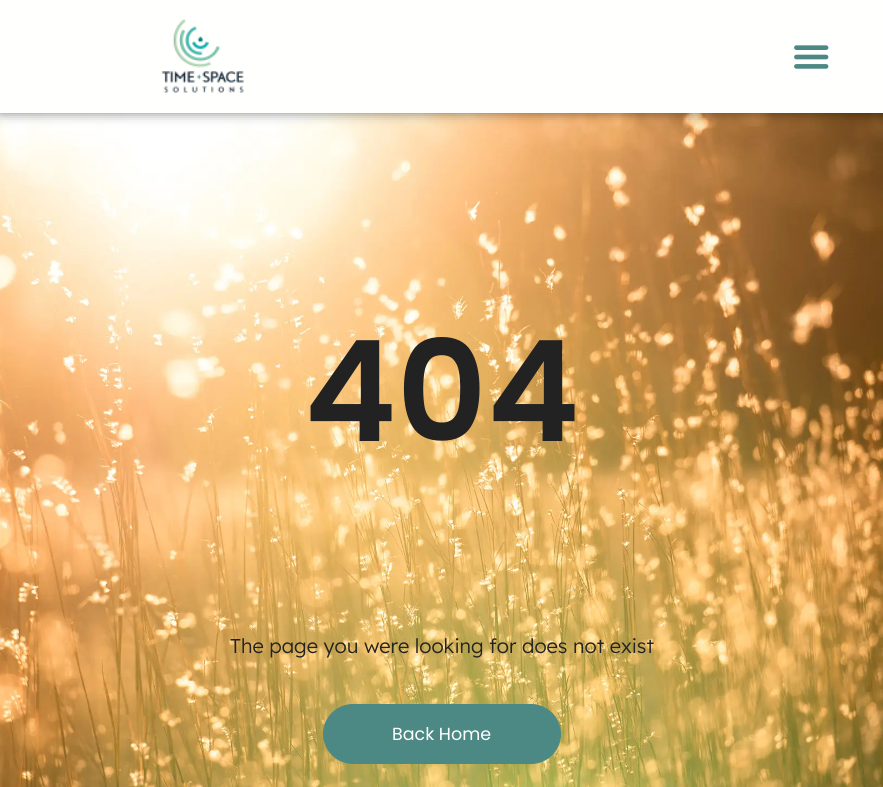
#include <cairo.h>
#include <math.h>
#include <stddef.h>


static void round_rect(cairo_t *cr, double x, double y, double w, double h, double r) {
    cairo_new_sub_path(cr);
    cairo_arc(cr, x + w - r, y + h - r, r, 0, M_PI / 2);
    cairo_arc(cr, x + r, y + h - r, r, M_PI / 2, M_PI);
    cairo_arc(cr, x + r, y + r, r, M_PI, 1.5 * M_PI);
    cairo_arc(cr, x + w - r, y + r, r, 1.5 * M_PI, 2 * M_PI);
    cairo_close_path(cr);
}

static void shadow(cairo_t *cr, double x, double y, double w, double h, double r, double blur, double alpha) {
    cairo_push_group_with_content(cr, CAIRO_CONTENT_ALPHA);
    cairo_set_operator(cr, CAIRO_OPERATOR_SOURCE);
    for (int i = 15; i >= -15 && fmin(w, h) + blur * i / 3 > 0; i -= 2) {
        double e = blur * i / 6;
        cairo_set_source_rgba(cr, 0, 0, 0, alpha * erfc((i - 1) / 8.5) / 2);
        round_rect(cr, x - e, y - e, w + 2 * e, h + 2 * e, fmax(0, fmin(r + e + blur * .6, fmin(w, h) / 2 + e)));
        cairo_fill(cr);
    }
    cairo_pattern_t *soft = cairo_pop_group(cr);
    cairo_mask(cr, soft);
    cairo_pattern_destroy(soft);
}

static void picture(cairo_t *cr, const char *path, double x, double y, double w, double h) {
    cairo_surface_t *image = cairo_image_surface_create_from_png(path);
    cairo_save(cr);
    cairo_set_source_surface(cr, image, x, y);
    cairo_rectangle(cr, x, y, w, h);
    cairo_fill(cr);
    cairo_restore(cr);
    cairo_surface_destroy(image);
}

int main(void) {
    cairo_surface_t *surface = cairo_image_surface_create(CAIRO_FORMAT_RGB24, 883, 787);
    cairo_t *cr = cairo_create(surface);
    cairo_font_options_t *options = cairo_font_options_create();
    cairo_font_options_set_hint_metrics(options, CAIRO_HINT_METRICS_OFF);
    cairo_font_options_set_hint_style(options, CAIRO_HINT_STYLE_NONE);
    cairo_set_font_options(cr, options);
    cairo_set_miter_limit(cr, 4);
    cairo_set_source_rgb(cr, 1, 1, 1);
    cairo_paint(cr);
    picture(cr, "img3.png", 0, 113, 883, 674);
    cairo_set_source_rgb(cr, 0, 0, 0);
    shadow(cr, 0, 0, 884, 113, 0, 6, 0.5);
    cairo_set_source_rgb(cr, 1, 1, 0.996);
    cairo_rectangle(cr, 0, 0, 883, 113);
    cairo_fill(cr);
    picture(cr, "img1.png", 161, 19, 83, 74);
    picture(cr, "img2.png", 794, 45, 35, 24);
    cairo_select_font_face(cr, "Poppins SemiBold", CAIRO_FONT_SLANT_NORMAL, CAIRO_FONT_WEIGHT_NORMAL);
    cairo_set_font_size(cr, 140);
    cairo_set_source_rgb(cr, 0.137, 0.133, 0.133);
    cairo_move_to(cr, 304, 441);
    cairo_show_text(cr, "404");
    cairo_select_font_face(cr, "Lexend Light", CAIRO_FONT_SLANT_NORMAL, CAIRO_FONT_WEIGHT_NORMAL);
    cairo_set_font_size(cr, 20);
    cairo_move_to(cr, 230, 653);
    cairo_show_text(cr, "The page you were looking for does not exist");
    cairo_set_source_rgb(cr, 0.298, 0.537, 0.518);
    round_rect(cr, 323.5, 704.5, 237, 59, 29.5);
    cairo_fill_preserve(cr);
    cairo_set_line_width(cr, 1);
    cairo_stroke(cr);
    cairo_select_font_face(cr, "Poppins", CAIRO_FONT_SLANT_NORMAL, CAIRO_FONT_WEIGHT_NORMAL);
    cairo_set_font_size(cr, 17.5);
    cairo_set_source_rgb(cr, 1, 1, 1);
    cairo_move_to(cr, 392, 740);
    cairo_show_text(cr, "Back Home");
    cairo_surface_write_to_png(surface, "page.png");
    cairo_font_options_destroy(options);
    cairo_destroy(cr);
    cairo_surface_destroy(surface);
    return 0;
}
